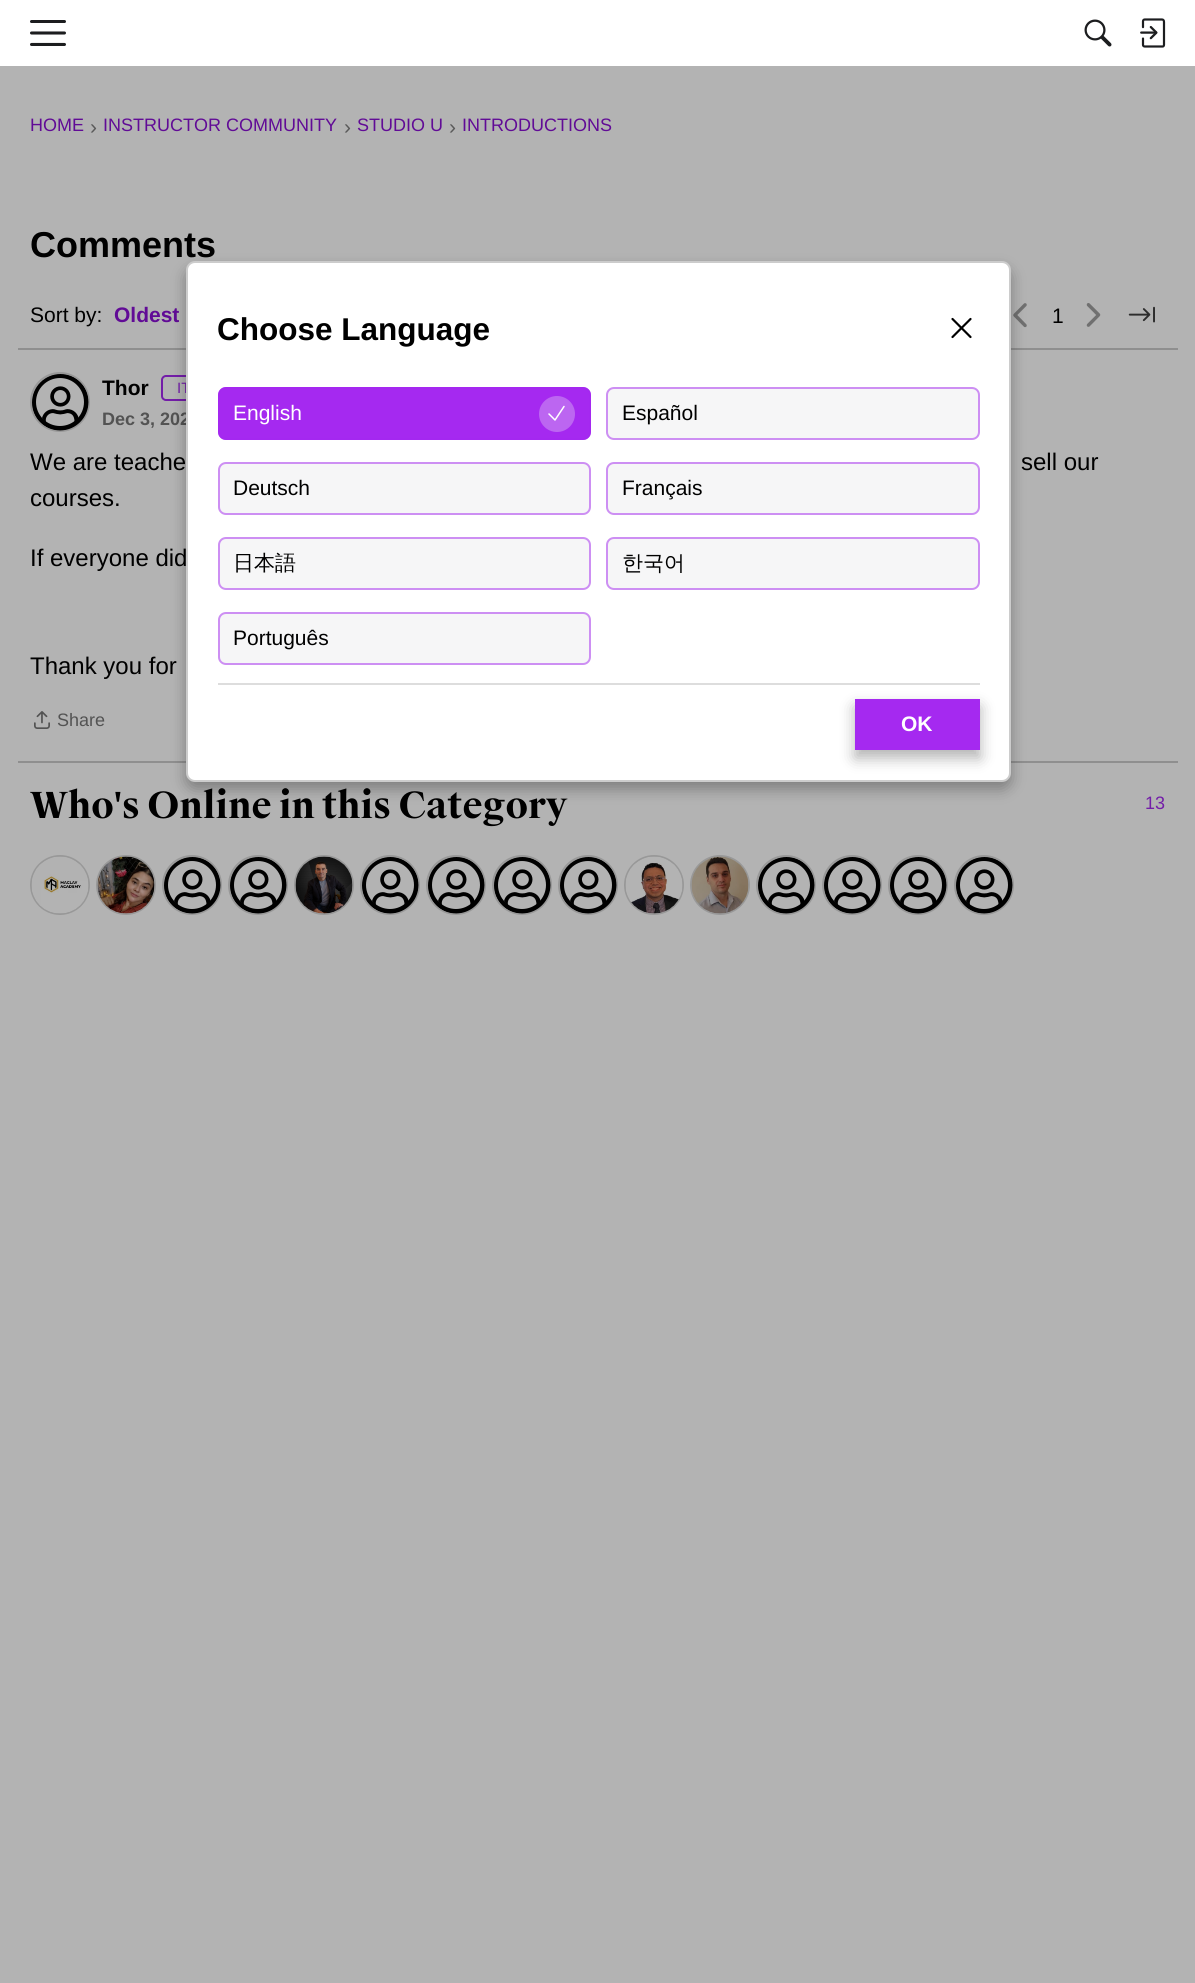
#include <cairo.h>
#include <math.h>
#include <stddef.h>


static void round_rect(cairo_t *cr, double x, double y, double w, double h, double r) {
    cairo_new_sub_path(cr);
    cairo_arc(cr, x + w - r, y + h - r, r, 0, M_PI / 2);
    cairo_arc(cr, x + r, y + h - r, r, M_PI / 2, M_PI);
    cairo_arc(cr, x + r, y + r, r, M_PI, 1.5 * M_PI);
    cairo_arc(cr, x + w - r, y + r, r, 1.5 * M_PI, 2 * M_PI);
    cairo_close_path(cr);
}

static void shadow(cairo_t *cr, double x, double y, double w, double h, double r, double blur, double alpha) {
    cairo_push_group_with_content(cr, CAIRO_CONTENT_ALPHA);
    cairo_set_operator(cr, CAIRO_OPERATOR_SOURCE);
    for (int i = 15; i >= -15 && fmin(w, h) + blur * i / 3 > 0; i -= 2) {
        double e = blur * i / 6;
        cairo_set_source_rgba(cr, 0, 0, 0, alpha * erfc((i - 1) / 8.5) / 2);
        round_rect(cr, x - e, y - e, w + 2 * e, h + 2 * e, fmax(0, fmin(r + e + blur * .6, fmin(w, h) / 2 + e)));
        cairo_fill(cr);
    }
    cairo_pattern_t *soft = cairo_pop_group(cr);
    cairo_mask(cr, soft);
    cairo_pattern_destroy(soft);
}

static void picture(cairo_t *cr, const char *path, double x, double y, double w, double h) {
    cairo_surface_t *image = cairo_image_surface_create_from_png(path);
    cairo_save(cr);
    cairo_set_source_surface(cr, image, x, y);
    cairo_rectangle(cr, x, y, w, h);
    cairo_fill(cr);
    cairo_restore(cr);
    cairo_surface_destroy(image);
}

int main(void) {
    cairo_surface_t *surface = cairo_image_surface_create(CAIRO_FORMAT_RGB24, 1195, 1983);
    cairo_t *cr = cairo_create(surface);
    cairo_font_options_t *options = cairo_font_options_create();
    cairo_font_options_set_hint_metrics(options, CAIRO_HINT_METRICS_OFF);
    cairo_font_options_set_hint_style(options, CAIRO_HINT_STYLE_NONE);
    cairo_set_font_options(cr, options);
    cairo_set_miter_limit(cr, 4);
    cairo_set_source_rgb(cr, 0.702, 0.702, 0.702);
    cairo_paint(cr);
    cairo_set_source_rgb(cr, 1, 1, 1);
    cairo_rectangle(cr, 0, 0, 1195, 66);
    cairo_fill(cr);
    picture(cr, "img1.png", 30, 20, 36, 26);
    picture(cr, "img2.png", 1084, 19, 28, 28);
    picture(cr, "img3.png", 1140, 18, 26, 30);
    cairo_select_font_face(cr, "Liberation Sans", CAIRO_FONT_SLANT_NORMAL, CAIRO_FONT_WEIGHT_NORMAL);
    cairo_set_font_size(cr, 18);
    cairo_set_source_rgb(cr, 0.38, 0.043, 0.588);
    cairo_move_to(cr, 30, 131);
    cairo_show_text(cr, "HOME");
    cairo_set_font_size(cr, 21);
    cairo_set_source_rgb(cr, 0.353, 0.353, 0.353);
    cairo_move_to(cr, 90, 134);
    cairo_show_text(cr, "›");
    cairo_set_font_size(cr, 18);
    cairo_set_source_rgb(cr, 0.38, 0.043, 0.588);
    cairo_move_to(cr, 103, 131);
    cairo_show_text(cr, "INSTRUCTOR COMMUNITY");
    cairo_set_font_size(cr, 21);
    cairo_set_source_rgb(cr, 0.353, 0.353, 0.353);
    cairo_move_to(cr, 344, 134);
    cairo_show_text(cr, "›");
    cairo_set_font_size(cr, 18);
    cairo_set_source_rgb(cr, 0.38, 0.043, 0.588);
    cairo_move_to(cr, 357, 131);
    cairo_show_text(cr, "STUDIO U");
    cairo_set_font_size(cr, 21);
    cairo_set_source_rgb(cr, 0.353, 0.353, 0.353);
    cairo_move_to(cr, 449, 134);
    cairo_show_text(cr, "›");
    cairo_set_font_size(cr, 18);
    cairo_set_source_rgb(cr, 0.38, 0.043, 0.588);
    cairo_move_to(cr, 462, 131);
    cairo_show_text(cr, "INTRODUCTIONS");
    cairo_select_font_face(cr, "Liberation Sans", CAIRO_FONT_SLANT_NORMAL, CAIRO_FONT_WEIGHT_BOLD);
    cairo_set_font_size(cr, 36);
    cairo_set_source_rgb(cr, 0, 0, 0);
    cairo_move_to(cr, 30, 257);
    cairo_show_text(cr, "Comments");
    cairo_select_font_face(cr, "Liberation Sans", CAIRO_FONT_SLANT_NORMAL, CAIRO_FONT_WEIGHT_NORMAL);
    cairo_set_font_size(cr, 21);
    cairo_move_to(cr, 30, 322);
    cairo_show_text(cr, "Sort by:");
    cairo_select_font_face(cr, "Liberation Sans", CAIRO_FONT_SLANT_NORMAL, CAIRO_FONT_WEIGHT_BOLD);
    cairo_set_source_rgb(cr, 0.38, 0.043, 0.588);
    cairo_move_to(cr, 114, 322);
    cairo_show_text(cr, "Oldest");
    picture(cr, "img4.png", 1013, 303, 14, 25);
    cairo_select_font_face(cr, "Liberation Sans", CAIRO_FONT_SLANT_NORMAL, CAIRO_FONT_WEIGHT_NORMAL);
    cairo_set_source_rgb(cr, 0, 0, 0);
    cairo_move_to(cr, 1052, 323);
    cairo_show_text(cr, "1");
    picture(cr, "img5.png", 1086, 303, 15, 24);
    picture(cr, "img6.png", 1128, 306, 27, 17);
    cairo_set_source_rgb(cr, 0.561, 0.561, 0.561);
    cairo_rectangle(cr, 18, 348, 1160, 2);
    cairo_fill(cr);
    cairo_arc(cr, 60, 402, 29, 0, 2 * M_PI);
    cairo_set_source_rgb(cr, 0.596, 0.596, 0.596);
    cairo_stroke(cr);
    picture(cr, "img7.png", 32, 374, 57, 57);
    cairo_select_font_face(cr, "Liberation Sans", CAIRO_FONT_SLANT_NORMAL, CAIRO_FONT_WEIGHT_BOLD);
    cairo_set_source_rgb(cr, 0, 0, 0);
    cairo_move_to(cr, 102, 395);
    cairo_show_text(cr, "Thor");
    round_rect(cr, 162, 376, 265, 24, 4);
    cairo_set_source_rgb(cr, 0.451, 0.114, 0.659);
    cairo_stroke(cr);
    cairo_select_font_face(cr, "Liberation Sans", CAIRO_FONT_SLANT_NORMAL, CAIRO_FONT_WEIGHT_NORMAL);
    cairo_set_font_size(cr, 15);
    cairo_move_to(cr, 177, 393);
    cairo_show_text(cr, "IT");
    cairo_select_font_face(cr, "Liberation Sans", CAIRO_FONT_SLANT_NORMAL, CAIRO_FONT_WEIGHT_BOLD);
    cairo_set_font_size(cr, 18);
    cairo_set_source_rgb(cr, 0.325, 0.325, 0.325);
    cairo_move_to(cr, 102, 425);
    cairo_show_text(cr, "Dec 3, 202");
    cairo_select_font_face(cr, "Liberation Sans", CAIRO_FONT_SLANT_NORMAL, CAIRO_FONT_WEIGHT_NORMAL);
    cairo_set_font_size(cr, 24);
    cairo_set_source_rgb(cr, 0, 0, 0);
    cairo_move_to(cr, 30, 470);
    cairo_show_text(cr, "We are teache");
    cairo_move_to(cr, 1021, 470);
    cairo_show_text(cr, "sell our");
    cairo_move_to(cr, 30, 506);
    cairo_show_text(cr, "courses.");
    cairo_move_to(cr, 30, 566);
    cairo_show_text(cr, "If everyone did");
    cairo_move_to(cr, 30, 674);
    cairo_show_text(cr, "Thank you for");
    picture(cr, "img8.png", 34, 711, 16, 18);
    cairo_set_font_size(cr, 18);
    cairo_set_source_rgb(cr, 0.325, 0.325, 0.325);
    cairo_move_to(cr, 57, 726);
    cairo_show_text(cr, "Share");
    cairo_set_source_rgb(cr, 0.561, 0.561, 0.561);
    cairo_rectangle(cr, 18, 761, 1160, 2);
    cairo_fill(cr);
    cairo_select_font_face(cr, "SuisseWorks", CAIRO_FONT_SLANT_NORMAL, CAIRO_FONT_WEIGHT_BOLD);
    cairo_set_font_size(cr, 36);
    cairo_set_source_rgb(cr, 0, 0, 0);
    cairo_move_to(cr, 30, 818);
    cairo_show_text(cr, "Who's Online in this Category");
    cairo_select_font_face(cr, "Liberation Sans", CAIRO_FONT_SLANT_NORMAL, CAIRO_FONT_WEIGHT_NORMAL);
    cairo_set_font_size(cr, 18);
    cairo_set_source_rgb(cr, 0.451, 0.114, 0.659);
    cairo_move_to(cr, 1145, 809);
    cairo_show_text(cr, "13");
    cairo_new_path(cr);
    cairo_arc(cr, 60, 885, 29, 0, 2 * M_PI);
    cairo_set_source_rgb(cr, 0.596, 0.596, 0.596);
    cairo_stroke(cr);
    picture(cr, "img9.png", 31, 856, 58, 58);
    cairo_arc(cr, 126, 885, 29, 0, 2 * M_PI);
    cairo_stroke(cr);
    picture(cr, "img10.png", 97, 856, 58, 58);
    cairo_arc(cr, 192, 885, 29, 0, 2 * M_PI);
    cairo_stroke(cr);
    picture(cr, "img7.png", 164, 857, 57, 57);
    cairo_arc(cr, 258, 885, 29, 0, 2 * M_PI);
    cairo_stroke(cr);
    picture(cr, "img7.png", 230, 857, 57, 57);
    cairo_arc(cr, 324, 885, 29, 0, 2 * M_PI);
    cairo_stroke(cr);
    picture(cr, "img11.png", 295, 856, 58, 58);
    cairo_arc(cr, 390, 885, 29, 0, 2 * M_PI);
    cairo_stroke(cr);
    picture(cr, "img7.png", 362, 857, 57, 57);
    cairo_arc(cr, 456, 885, 29, 0, 2 * M_PI);
    cairo_stroke(cr);
    picture(cr, "img7.png", 428, 857, 57, 57);
    cairo_arc(cr, 522, 885, 29, 0, 2 * M_PI);
    cairo_stroke(cr);
    picture(cr, "img7.png", 494, 857, 57, 57);
    cairo_arc(cr, 588, 885, 29, 0, 2 * M_PI);
    cairo_stroke(cr);
    picture(cr, "img7.png", 560, 857, 57, 57);
    cairo_arc(cr, 654, 885, 29, 0, 2 * M_PI);
    cairo_stroke(cr);
    picture(cr, "img12.png", 625, 856, 58, 58);
    cairo_arc(cr, 720, 885, 29, 0, 2 * M_PI);
    cairo_stroke(cr);
    picture(cr, "img13.png", 691, 856, 58, 58);
    cairo_arc(cr, 786, 885, 29, 0, 2 * M_PI);
    cairo_stroke(cr);
    picture(cr, "img7.png", 758, 857, 57, 57);
    cairo_arc(cr, 852, 885, 29, 0, 2 * M_PI);
    cairo_stroke(cr);
    picture(cr, "img7.png", 824, 857, 57, 57);
    cairo_arc(cr, 918, 885, 29, 0, 2 * M_PI);
    cairo_stroke(cr);
    picture(cr, "img7.png", 890, 857, 57, 57);
    cairo_arc(cr, 984, 885, 29, 0, 2 * M_PI);
    cairo_stroke(cr);
    picture(cr, "img7.png", 956, 857, 57, 57);
    cairo_set_source_rgb(cr, 0, 0, 0);
    shadow(cr, 186, 269, 825, 520, 9, 7.5, 0.3);
    cairo_set_source_rgb(cr, 1, 1, 1);
    round_rect(cr, 187, 262, 823, 519, 8);
    cairo_fill_preserve(cr);
    cairo_set_source_rgb(cr, 0.8, 0.8, 0.8);
    cairo_stroke(cr);
    cairo_select_font_face(cr, "Liberation Sans", CAIRO_FONT_SLANT_NORMAL, CAIRO_FONT_WEIGHT_BOLD);
    cairo_set_font_size(cr, 31.5);
    cairo_set_source_rgb(cr, 0, 0, 0);
    cairo_move_to(cr, 217, 340);
    cairo_show_text(cr, "Choose Language");
    cairo_new_path(cr);
    cairo_move_to(cr, 952.5, 337);
    cairo_line_to(cr, 970.5, 319);
    cairo_move_to(cr, 952.5, 319);
    cairo_line_to(cr, 970.5, 337);
    cairo_set_line_width(cr, 2.2);
    cairo_set_line_cap(cr, CAIRO_LINE_CAP_ROUND);
    cairo_set_line_join(cr, CAIRO_LINE_JOIN_ROUND);
    cairo_stroke(cr);
    cairo_set_source_rgb(cr, 0.647, 0.161, 0.941);
    round_rect(cr, 218, 387, 373, 53, 8);
    cairo_fill(cr);
    round_rect(cr, 219, 388, 371, 51, 7);
    cairo_set_source_rgba(cr, 0.647, 0.161, 0.941, 0.5);
    cairo_set_line_width(cr, 2);
    cairo_set_line_cap(cr, CAIRO_LINE_CAP_BUTT);
    cairo_set_line_join(cr, CAIRO_LINE_JOIN_MITER);
    cairo_stroke(cr);
    cairo_select_font_face(cr, "Liberation Sans", CAIRO_FONT_SLANT_NORMAL, CAIRO_FONT_WEIGHT_NORMAL);
    cairo_set_font_size(cr, 21);
    cairo_set_source_rgb(cr, 1, 1, 1);
    cairo_move_to(cr, 233, 420);
    cairo_show_text(cr, "English");
    cairo_set_source_rgb(cr, 0.737, 0.4, 0.945);
    cairo_new_path(cr);
    cairo_arc(cr, 557, 414, 18, 0, 2 * M_PI);
    cairo_fill(cr);
    cairo_new_path(cr);
    cairo_move_to(cr, 549, 414);
    cairo_line_to(cr, 555, 420);
    cairo_line_to(cr, 564, 406.5);
    cairo_set_source_rgb(cr, 1, 1, 1);
    cairo_set_line_width(cr, 1.5);
    cairo_set_line_cap(cr, CAIRO_LINE_CAP_ROUND);
    cairo_set_line_join(cr, CAIRO_LINE_JOIN_ROUND);
    cairo_stroke(cr);
    cairo_set_source_rgb(cr, 0.961, 0.961, 0.965);
    round_rect(cr, 606, 387, 374, 53, 8);
    cairo_fill(cr);
    round_rect(cr, 607, 388, 372, 51, 7);
    cairo_set_source_rgba(cr, 0.647, 0.161, 0.941, 0.5);
    cairo_set_line_width(cr, 2);
    cairo_set_line_cap(cr, CAIRO_LINE_CAP_BUTT);
    cairo_set_line_join(cr, CAIRO_LINE_JOIN_MITER);
    cairo_stroke(cr);
    cairo_set_source_rgb(cr, 0, 0, 0);
    cairo_move_to(cr, 622, 420);
    cairo_show_text(cr, "Español");
    cairo_set_source_rgb(cr, 0.961, 0.961, 0.965);
    round_rect(cr, 218, 462, 373, 53, 8);
    cairo_fill(cr);
    round_rect(cr, 219, 463, 371, 51, 7);
    cairo_set_source_rgba(cr, 0.647, 0.161, 0.941, 0.5);
    cairo_stroke(cr);
    cairo_set_source_rgb(cr, 0, 0, 0);
    cairo_move_to(cr, 233, 495);
    cairo_show_text(cr, "Deutsch");
    cairo_set_source_rgb(cr, 0.961, 0.961, 0.965);
    round_rect(cr, 606, 462, 374, 53, 8);
    cairo_fill(cr);
    round_rect(cr, 607, 463, 372, 51, 7);
    cairo_set_source_rgba(cr, 0.647, 0.161, 0.941, 0.5);
    cairo_stroke(cr);
    cairo_set_source_rgb(cr, 0, 0, 0);
    cairo_move_to(cr, 622, 495);
    cairo_show_text(cr, "Français");
    cairo_set_source_rgb(cr, 0.961, 0.961, 0.965);
    round_rect(cr, 218, 537, 373, 53, 8);
    cairo_fill(cr);
    round_rect(cr, 219, 538, 371, 51, 7);
    cairo_set_source_rgba(cr, 0.647, 0.161, 0.941, 0.5);
    cairo_stroke(cr);
    cairo_select_font_face(cr, "WenQuanYi Zen Hei Medium", CAIRO_FONT_SLANT_NORMAL, CAIRO_FONT_WEIGHT_NORMAL);
    cairo_set_source_rgb(cr, 0, 0, 0);
    cairo_move_to(cr, 233, 570);
    cairo_show_text(cr, "日本語");
    cairo_set_source_rgb(cr, 0.961, 0.961, 0.965);
    round_rect(cr, 606, 537, 374, 53, 8);
    cairo_fill(cr);
    round_rect(cr, 607, 538, 372, 51, 7);
    cairo_set_source_rgba(cr, 0.647, 0.161, 0.941, 0.5);
    cairo_stroke(cr);
    cairo_set_source_rgb(cr, 0, 0, 0);
    cairo_move_to(cr, 622, 570);
    cairo_show_text(cr, "한국어");
    cairo_set_source_rgb(cr, 0.961, 0.961, 0.965);
    round_rect(cr, 218, 612, 373, 53, 8);
    cairo_fill(cr);
    round_rect(cr, 219, 613, 371, 51, 7);
    cairo_set_source_rgba(cr, 0.647, 0.161, 0.941, 0.5);
    cairo_stroke(cr);
    cairo_select_font_face(cr, "Liberation Sans", CAIRO_FONT_SLANT_NORMAL, CAIRO_FONT_WEIGHT_NORMAL);
    cairo_set_source_rgb(cr, 0, 0, 0);
    cairo_move_to(cr, 233, 645);
    cairo_show_text(cr, "Português");
    cairo_set_source_rgb(cr, 0.867, 0.867, 0.867);
    cairo_rectangle(cr, 218, 683, 762, 2);
    cairo_fill(cr);
    cairo_set_source_rgb(cr, 0, 0, 0);
    shadow(cr, 855, 707, 125, 51, 0, 7.5, 0.3);
    cairo_set_source_rgb(cr, 0.647, 0.161, 0.941);
    cairo_rectangle(cr, 855, 699, 125, 51);
    cairo_fill(cr);
    cairo_select_font_face(cr, "Liberation Sans", CAIRO_FONT_SLANT_NORMAL, CAIRO_FONT_WEIGHT_BOLD);
    cairo_set_source_rgb(cr, 1, 1, 1);
    cairo_move_to(cr, 901, 731);
    cairo_show_text(cr, "OK");
    cairo_surface_write_to_png(surface, "page.png");
    cairo_font_options_destroy(options);
    cairo_destroy(cr);
    cairo_surface_destroy(surface);
    return 0;
}
